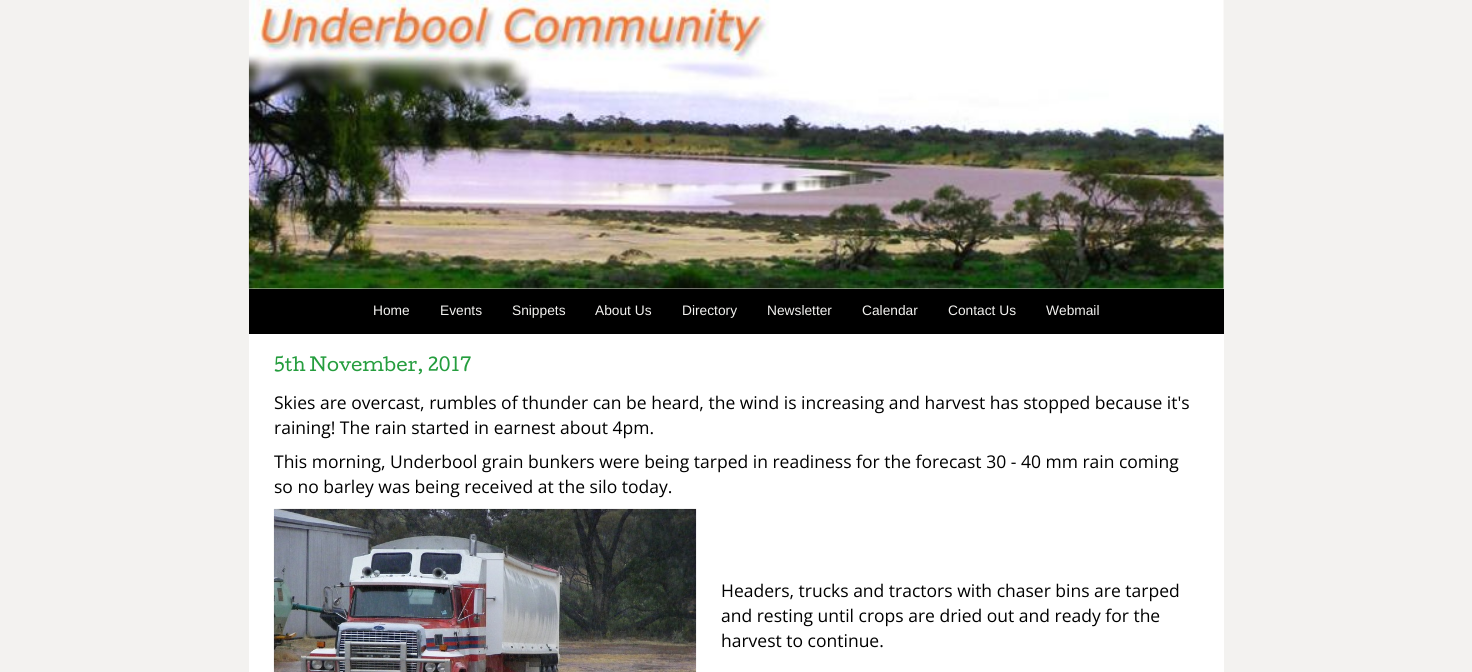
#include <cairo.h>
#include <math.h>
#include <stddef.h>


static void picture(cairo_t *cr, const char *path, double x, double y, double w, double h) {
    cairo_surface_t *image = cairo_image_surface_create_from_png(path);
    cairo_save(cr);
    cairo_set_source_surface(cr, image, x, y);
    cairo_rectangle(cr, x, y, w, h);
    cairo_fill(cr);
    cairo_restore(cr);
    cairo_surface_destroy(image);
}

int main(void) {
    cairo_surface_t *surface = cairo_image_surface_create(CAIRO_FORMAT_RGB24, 1472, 672);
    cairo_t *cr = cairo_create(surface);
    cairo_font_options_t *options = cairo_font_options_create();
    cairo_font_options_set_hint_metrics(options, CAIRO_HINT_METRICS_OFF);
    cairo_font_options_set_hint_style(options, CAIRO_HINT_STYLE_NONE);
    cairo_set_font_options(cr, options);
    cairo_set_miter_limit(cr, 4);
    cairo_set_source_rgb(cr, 0.953, 0.949, 0.941);
    cairo_paint(cr);
    picture(cr, "img1.png", 248, 0, 976, 289);
    cairo_set_source_rgb(cr, 0, 0, 0);
    cairo_rectangle(cr, 249, 289, 975, 45);
    cairo_fill(cr);
    cairo_select_font_face(cr, "Liberation Sans", CAIRO_FONT_SLANT_NORMAL, CAIRO_FONT_WEIGHT_NORMAL);
    cairo_set_font_size(cr, 13.75);
    cairo_set_source_rgb(cr, 0.953, 0.949, 0.941);
    cairo_move_to(cr, 373, 315);
    cairo_show_text(cr, "Home");
    cairo_move_to(cr, 440, 315);
    cairo_show_text(cr, "Events");
    cairo_move_to(cr, 512, 315);
    cairo_show_text(cr, "Snippets");
    cairo_move_to(cr, 595, 315);
    cairo_show_text(cr, "About Us");
    cairo_move_to(cr, 682, 315);
    cairo_show_text(cr, "Directory");
    cairo_move_to(cr, 767, 315);
    cairo_show_text(cr, "Newsletter");
    cairo_move_to(cr, 862, 315);
    cairo_show_text(cr, "Calendar");
    cairo_move_to(cr, 948, 315);
    cairo_show_text(cr, "Contact Us");
    cairo_move_to(cr, 1046, 315);
    cairo_show_text(cr, "Webmail");
    cairo_set_source_rgb(cr, 1, 1, 1);
    cairo_rectangle(cr, 249, 334, 975, 338);
    cairo_fill(cr);
    cairo_select_font_face(cr, "Cutive", CAIRO_FONT_SLANT_NORMAL, CAIRO_FONT_WEIGHT_NORMAL);
    cairo_set_font_size(cr, 17.5);
    cairo_set_source_rgb(cr, 0.145, 0.616, 0.243);
    cairo_move_to(cr, 274, 371);
    cairo_show_text(cr, "5th November, 2017");
    cairo_select_font_face(cr, "Open Sans", CAIRO_FONT_SLANT_NORMAL, CAIRO_FONT_WEIGHT_NORMAL);
    cairo_set_source_rgb(cr, 0, 0, 0);
    cairo_move_to(cr, 274, 409);
    cairo_show_text(cr, "Skies are overcast, rumbles of thunder can be heard, the wind is increasing and harvest has stopped because it's");
    cairo_move_to(cr, 274, 434);
    cairo_show_text(cr, "raining! The rain started in earnest about 4pm.");
    cairo_move_to(cr, 274, 468);
    cairo_show_text(cr, "This morning, Underbool grain bunkers were being tarped in readiness for the forecast 30 - 40 mm rain coming");
    cairo_move_to(cr, 274, 493);
    cairo_show_text(cr, "so no barley was being received at the silo today.");
    picture(cr, "img2.png", 273, 508, 424, 164);
    cairo_move_to(cr, 721, 597);
    cairo_show_text(cr, "Headers, trucks and tractors with chaser bins are tarped");
    cairo_move_to(cr, 721, 622);
    cairo_show_text(cr, "and resting until crops are dried out and ready for the");
    cairo_move_to(cr, 721, 647);
    cairo_show_text(cr, "harvest to continue.");
    cairo_surface_write_to_png(surface, "page.png");
    cairo_font_options_destroy(options);
    cairo_destroy(cr);
    cairo_surface_destroy(surface);
    return 0;
}
